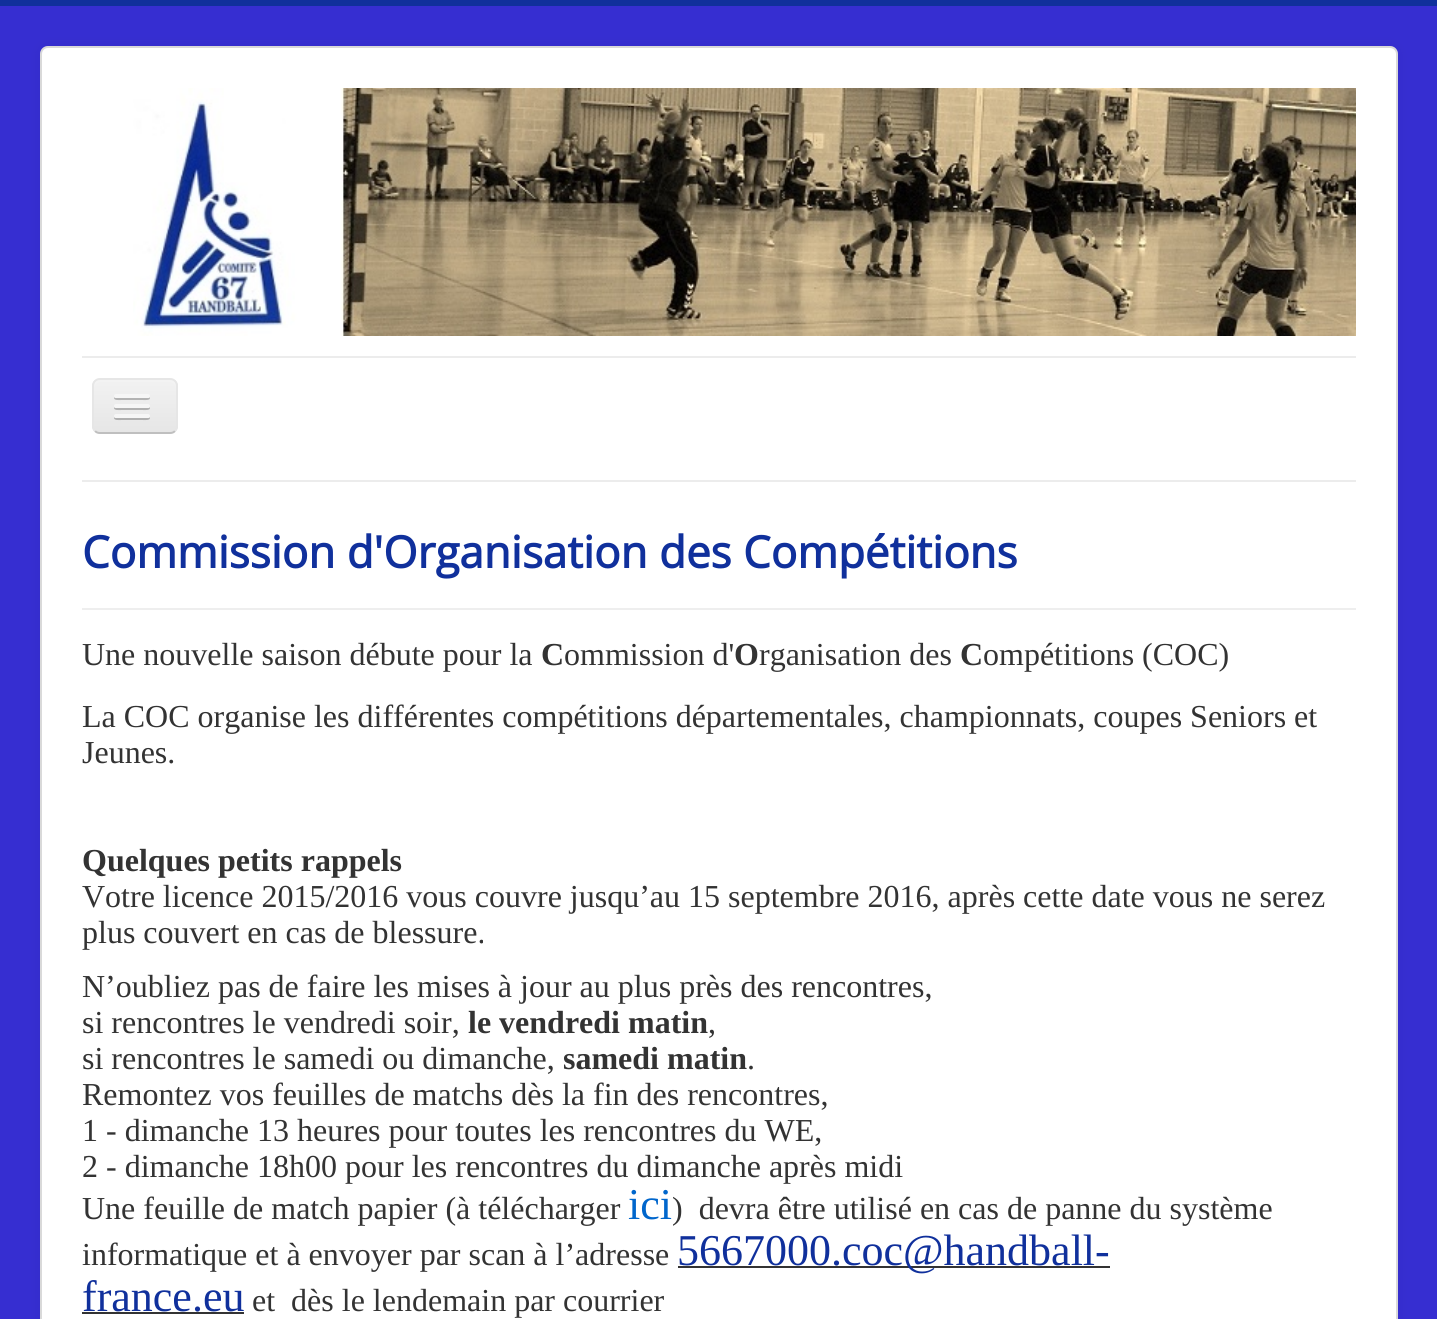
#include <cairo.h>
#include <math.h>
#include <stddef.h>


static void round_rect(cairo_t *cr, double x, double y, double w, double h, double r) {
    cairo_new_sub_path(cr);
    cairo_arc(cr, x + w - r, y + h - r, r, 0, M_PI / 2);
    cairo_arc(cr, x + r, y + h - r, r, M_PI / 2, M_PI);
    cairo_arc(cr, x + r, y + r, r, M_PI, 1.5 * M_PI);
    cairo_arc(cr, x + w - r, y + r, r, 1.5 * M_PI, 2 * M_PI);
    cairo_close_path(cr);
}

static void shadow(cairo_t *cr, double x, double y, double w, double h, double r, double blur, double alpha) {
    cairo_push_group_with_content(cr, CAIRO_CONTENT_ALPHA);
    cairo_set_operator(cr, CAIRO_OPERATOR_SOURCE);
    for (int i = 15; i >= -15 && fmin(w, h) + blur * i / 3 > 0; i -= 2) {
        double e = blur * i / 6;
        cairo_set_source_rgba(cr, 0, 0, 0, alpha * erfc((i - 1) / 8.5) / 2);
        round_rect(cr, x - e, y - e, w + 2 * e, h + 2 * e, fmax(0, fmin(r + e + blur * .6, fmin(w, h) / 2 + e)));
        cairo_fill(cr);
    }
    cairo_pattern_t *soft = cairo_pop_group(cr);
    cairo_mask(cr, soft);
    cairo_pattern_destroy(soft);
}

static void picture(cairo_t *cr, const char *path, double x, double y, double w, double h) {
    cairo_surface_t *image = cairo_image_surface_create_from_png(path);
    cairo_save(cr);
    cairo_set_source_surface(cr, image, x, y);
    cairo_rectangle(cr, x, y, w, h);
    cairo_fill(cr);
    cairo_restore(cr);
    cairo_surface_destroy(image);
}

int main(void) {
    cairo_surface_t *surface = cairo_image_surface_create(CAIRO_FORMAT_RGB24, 1437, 1319);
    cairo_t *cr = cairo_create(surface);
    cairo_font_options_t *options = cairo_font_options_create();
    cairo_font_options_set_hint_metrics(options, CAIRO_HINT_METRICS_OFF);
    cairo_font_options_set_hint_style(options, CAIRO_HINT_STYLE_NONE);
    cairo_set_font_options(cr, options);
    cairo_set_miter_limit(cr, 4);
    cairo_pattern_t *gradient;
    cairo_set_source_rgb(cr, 0.212, 0.18, 0.82);
    cairo_paint(cr);
    cairo_set_source_rgb(cr, 0.063, 0.188, 0.612);
    cairo_rectangle(cr, 0, 0, 1437, 6);
    cairo_fill(cr);
    cairo_set_source_rgb(cr, 0, 0, 0);
    shadow(cr, 40, 46, 1358, 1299, 8, 6, 0.05);
    cairo_set_source_rgb(cr, 1, 1, 1);
    round_rect(cr, 40, 46, 1358, 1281, 8);
    cairo_fill(cr);
    round_rect(cr, 41, 47, 1356, 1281, 7);
    cairo_set_source_rgba(cr, 0, 0, 0, 0.15);
    cairo_stroke(cr);
    picture(cr, "img1.png", 133, 88, 1223, 248);
    cairo_set_source_rgb(cr, 0.925, 0.925, 0.925);
    cairo_rectangle(cr, 82, 356, 1274, 2);
    cairo_fill(cr);
    cairo_rectangle(cr, 82, 480, 1274, 2);
    cairo_fill(cr);
    cairo_save(cr);
    round_rect(cr, 92, 378, 86, 56, 8);
    cairo_clip(cr);
    gradient = cairo_pattern_create_linear(135, 380, 135, 432);
    cairo_pattern_add_color_stop_rgba(gradient, 0, 0.949, 0.949, 0.949, 1);
    cairo_pattern_add_color_stop_rgba(gradient, 1, 0.902, 0.902, 0.902, 1);
    cairo_set_source(cr, gradient);
    cairo_pattern_destroy(gradient);
    cairo_rectangle(cr, 92, 380, 86, 52);
    cairo_fill(cr);
    cairo_restore(cr);
    cairo_set_source_rgb(cr, 0.953, 0.953, 0.953);
    cairo_new_path(cr);
    cairo_move_to(cr, 100, 382);
    cairo_line_to(cr, 170, 382);
    cairo_curve_to(cr, 173, 382, 176, 385, 176, 388);
    cairo_curve_to(cr, 176, 377, 167, 380, 158, 380);
    cairo_line_to(cr, 112, 380);
    cairo_curve_to(cr, 103, 380, 94, 377, 94, 388);
    cairo_curve_to(cr, 94, 385, 97, 382, 100, 382);
    cairo_close_path(cr);
    cairo_fill(cr);
    cairo_new_path(cr);
    cairo_move_to(cr, 175, 431);
    cairo_curve_to(cr, 173.5, 432.5, 172, 433, 170, 433);
    cairo_line_to(cr, 100, 433);
    cairo_curve_to(cr, 98, 433, 96.5, 432.5, 95, 431);
    cairo_set_source_rgb(cr, 0.749, 0.749, 0.749);
    cairo_stroke(cr);
    cairo_new_path(cr);
    cairo_move_to(cr, 95, 431);
    cairo_curve_to(cr, 93.5, 429.5, 93, 428, 93, 426);
    cairo_line_to(cr, 93, 386);
    cairo_curve_to(cr, 93, 384, 93.5, 382.5, 95, 381);
    cairo_curve_to(cr, 96.5, 379.5, 98, 379, 100, 379);
    cairo_line_to(cr, 170, 379);
    cairo_curve_to(cr, 172, 379, 173.5, 379.5, 175, 381);
    cairo_curve_to(cr, 176.5, 382.5, 177, 384, 177, 386);
    cairo_line_to(cr, 177, 426);
    cairo_curve_to(cr, 177, 428, 176.5, 429.5, 175, 431);
    cairo_set_source_rgb(cr, 0.902, 0.902, 0.902);
    cairo_stroke(cr);
    cairo_set_source_rgb(cr, 0.702, 0.702, 0.702);
    cairo_new_path(cr);
    cairo_move_to(cr, 114.5, 397);
    cairo_curve_to(cr, 112, 401, 121, 400, 121.5, 400);
    cairo_line_to(cr, 142.5, 400);
    cairo_curve_to(cr, 143, 400, 152, 401, 149.5, 397);
    cairo_curve_to(cr, 149.5, 397.5, 148.5, 398, 148, 398);
    cairo_line_to(cr, 116, 398);
    cairo_curve_to(cr, 115.5, 398, 114.5, 397.5, 114.5, 397);
    cairo_close_path(cr);
    cairo_fill(cr);
    cairo_set_source_rgb(cr, 0.961, 0.961, 0.961);
    round_rect(cr, 114, 394, 36, 4, 2);
    cairo_fill(cr);
    cairo_set_source_rgb(cr, 0.69, 0.69, 0.69);
    cairo_new_path(cr);
    cairo_move_to(cr, 114.5, 407);
    cairo_curve_to(cr, 112, 411, 121, 410, 121.5, 410);
    cairo_line_to(cr, 142.5, 410);
    cairo_curve_to(cr, 143, 410, 152, 411, 149.5, 407);
    cairo_curve_to(cr, 149.5, 407.5, 148.5, 408, 148, 408);
    cairo_line_to(cr, 116, 408);
    cairo_curve_to(cr, 115.5, 408, 114.5, 407.5, 114.5, 407);
    cairo_close_path(cr);
    cairo_fill(cr);
    cairo_set_source_rgb(cr, 0.961, 0.961, 0.961);
    round_rect(cr, 114, 404, 36, 4, 2);
    cairo_fill(cr);
    cairo_set_source_rgb(cr, 0.686, 0.686, 0.686);
    cairo_new_path(cr);
    cairo_move_to(cr, 114.5, 417);
    cairo_curve_to(cr, 112, 421, 121, 420, 121.5, 420);
    cairo_line_to(cr, 142.5, 420);
    cairo_curve_to(cr, 143, 420, 152, 421, 149.5, 417);
    cairo_curve_to(cr, 149.5, 417.5, 148.5, 418, 148, 418);
    cairo_line_to(cr, 116, 418);
    cairo_curve_to(cr, 115.5, 418, 114.5, 417.5, 114.5, 417);
    cairo_close_path(cr);
    cairo_fill(cr);
    cairo_set_source_rgb(cr, 0.961, 0.961, 0.961);
    round_rect(cr, 114, 414, 36, 4, 2);
    cairo_fill(cr);
    cairo_set_source_rgb(cr, 0.933, 0.933, 0.933);
    cairo_rectangle(cr, 82, 608, 1274, 2);
    cairo_fill(cr);
    cairo_select_font_face(cr, "Open Sans", CAIRO_FONT_SLANT_NORMAL, CAIRO_FONT_WEIGHT_BOLD);
    cairo_set_font_size(cr, 44);
    cairo_set_source_rgb(cr, 0.063, 0.188, 0.612);
    cairo_move_to(cr, 82, 568);
    cairo_show_text(cr, "Commission d'Organisation des Compétitions");
    cairo_select_font_face(cr, "Liberation Serif", CAIRO_FONT_SLANT_NORMAL, CAIRO_FONT_WEIGHT_NORMAL);
    cairo_set_font_size(cr, 32);
    cairo_set_source_rgb(cr, 0.2, 0.2, 0.2);
    cairo_move_to(cr, 82, 665);
    cairo_show_text(cr, "Une nouvelle saison débute pour la");
    cairo_select_font_face(cr, "Liberation Serif", CAIRO_FONT_SLANT_NORMAL, CAIRO_FONT_WEIGHT_BOLD);
    cairo_move_to(cr, 541, 665);
    cairo_show_text(cr, "C");
    cairo_select_font_face(cr, "Liberation Serif", CAIRO_FONT_SLANT_NORMAL, CAIRO_FONT_WEIGHT_NORMAL);
    cairo_move_to(cr, 564, 665);
    cairo_show_text(cr, "ommission d'");
    cairo_select_font_face(cr, "Liberation Serif", CAIRO_FONT_SLANT_NORMAL, CAIRO_FONT_WEIGHT_BOLD);
    cairo_move_to(cr, 734, 665);
    cairo_show_text(cr, "O");
    cairo_select_font_face(cr, "Liberation Serif", CAIRO_FONT_SLANT_NORMAL, CAIRO_FONT_WEIGHT_NORMAL);
    cairo_move_to(cr, 759, 665);
    cairo_show_text(cr, "rganisation des");
    cairo_select_font_face(cr, "Liberation Serif", CAIRO_FONT_SLANT_NORMAL, CAIRO_FONT_WEIGHT_BOLD);
    cairo_move_to(cr, 960, 665);
    cairo_show_text(cr, "C");
    cairo_select_font_face(cr, "Liberation Serif", CAIRO_FONT_SLANT_NORMAL, CAIRO_FONT_WEIGHT_NORMAL);
    cairo_move_to(cr, 983, 665);
    cairo_show_text(cr, "ompétitions (COC)");
    cairo_move_to(cr, 82, 727);
    cairo_show_text(cr, "La COC organise les différentes compétitions départementales, championnats, coupes Seniors et");
    cairo_move_to(cr, 82, 763);
    cairo_show_text(cr, "Jeunes.");
    cairo_select_font_face(cr, "Liberation Serif", CAIRO_FONT_SLANT_NORMAL, CAIRO_FONT_WEIGHT_BOLD);
    cairo_move_to(cr, 82, 871);
    cairo_show_text(cr, "Quelques petits rappels");
    cairo_select_font_face(cr, "Liberation Serif", CAIRO_FONT_SLANT_NORMAL, CAIRO_FONT_WEIGHT_NORMAL);
    cairo_move_to(cr, 82, 907);
    cairo_show_text(cr, "Votre licence 2015/2016 vous couvre jusqu’au 15 septembre 2016, après cette date vous ne serez");
    cairo_move_to(cr, 82, 943);
    cairo_show_text(cr, "plus couvert en cas de blessure.");
    cairo_move_to(cr, 82, 997);
    cairo_show_text(cr, "N’oubliez pas de faire les mises à jour au plus près des rencontres,");
    cairo_move_to(cr, 82, 1033);
    cairo_show_text(cr, "si rencontres le vendredi soir,");
    cairo_select_font_face(cr, "Liberation Serif", CAIRO_FONT_SLANT_NORMAL, CAIRO_FONT_WEIGHT_BOLD);
    cairo_move_to(cr, 468, 1033);
    cairo_show_text(cr, "le vendredi matin");
    cairo_select_font_face(cr, "Liberation Serif", CAIRO_FONT_SLANT_NORMAL, CAIRO_FONT_WEIGHT_NORMAL);
    cairo_move_to(cr, 708, 1033);
    cairo_show_text(cr, ",");
    cairo_move_to(cr, 82, 1069);
    cairo_show_text(cr, "si rencontres le samedi ou dimanche,");
    cairo_select_font_face(cr, "Liberation Serif", CAIRO_FONT_SLANT_NORMAL, CAIRO_FONT_WEIGHT_BOLD);
    cairo_move_to(cr, 563, 1069);
    cairo_show_text(cr, "samedi matin");
    cairo_select_font_face(cr, "Liberation Serif", CAIRO_FONT_SLANT_NORMAL, CAIRO_FONT_WEIGHT_NORMAL);
    cairo_move_to(cr, 747, 1069);
    cairo_show_text(cr, ".");
    cairo_move_to(cr, 82, 1105);
    cairo_show_text(cr, "Remontez vos feuilles de matchs dès la fin des rencontres,");
    cairo_move_to(cr, 82, 1141);
    cairo_show_text(cr, "1 - dimanche 13 heures pour toutes les rencontres du WE,");
    cairo_move_to(cr, 82, 1177);
    cairo_show_text(cr, "2 - dimanche 18h00 pour les rencontres du dimanche après midi");
    cairo_move_to(cr, 82, 1219);
    cairo_show_text(cr, "Une feuille de match papier (à télécharger");
    cairo_set_font_size(cr, 44);
    cairo_set_source_rgb(cr, 0, 0.4, 0.8);
    cairo_move_to(cr, 628, 1219);
    cairo_show_text(cr, "ici");
    cairo_set_font_size(cr, 32);
    cairo_set_source_rgb(cr, 0.2, 0.2, 0.2);
    cairo_move_to(cr, 672, 1219);
    cairo_show_text(cr, ")  devra être utilisé en cas de panne du système");
    cairo_move_to(cr, 82, 1265);
    cairo_show_text(cr, "informatique et à envoyer par scan à l’adresse");
    cairo_rectangle(cr, 678, 1266, 432, 2);
    cairo_fill(cr);
    cairo_set_font_size(cr, 44);
    cairo_set_source_rgb(cr, 0.063, 0.188, 0.612);
    cairo_move_to(cr, 677, 1265);
    cairo_show_text(cr, "5667000.coc@handball-");
    cairo_move_to(cr, 82, 1311);
    cairo_show_text(cr, "france.eu");
    cairo_set_font_size(cr, 32);
    cairo_set_source_rgb(cr, 0.2, 0.2, 0.2);
    cairo_move_to(cr, 252, 1311);
    cairo_show_text(cr, "et  dès le lendemain par courrier");
    cairo_rectangle(cr, 82, 1312, 162, 2);
    cairo_fill(cr);
    cairo_surface_write_to_png(surface, "page.png");
    cairo_font_options_destroy(options);
    cairo_destroy(cr);
    cairo_surface_destroy(surface);
    return 0;
}
